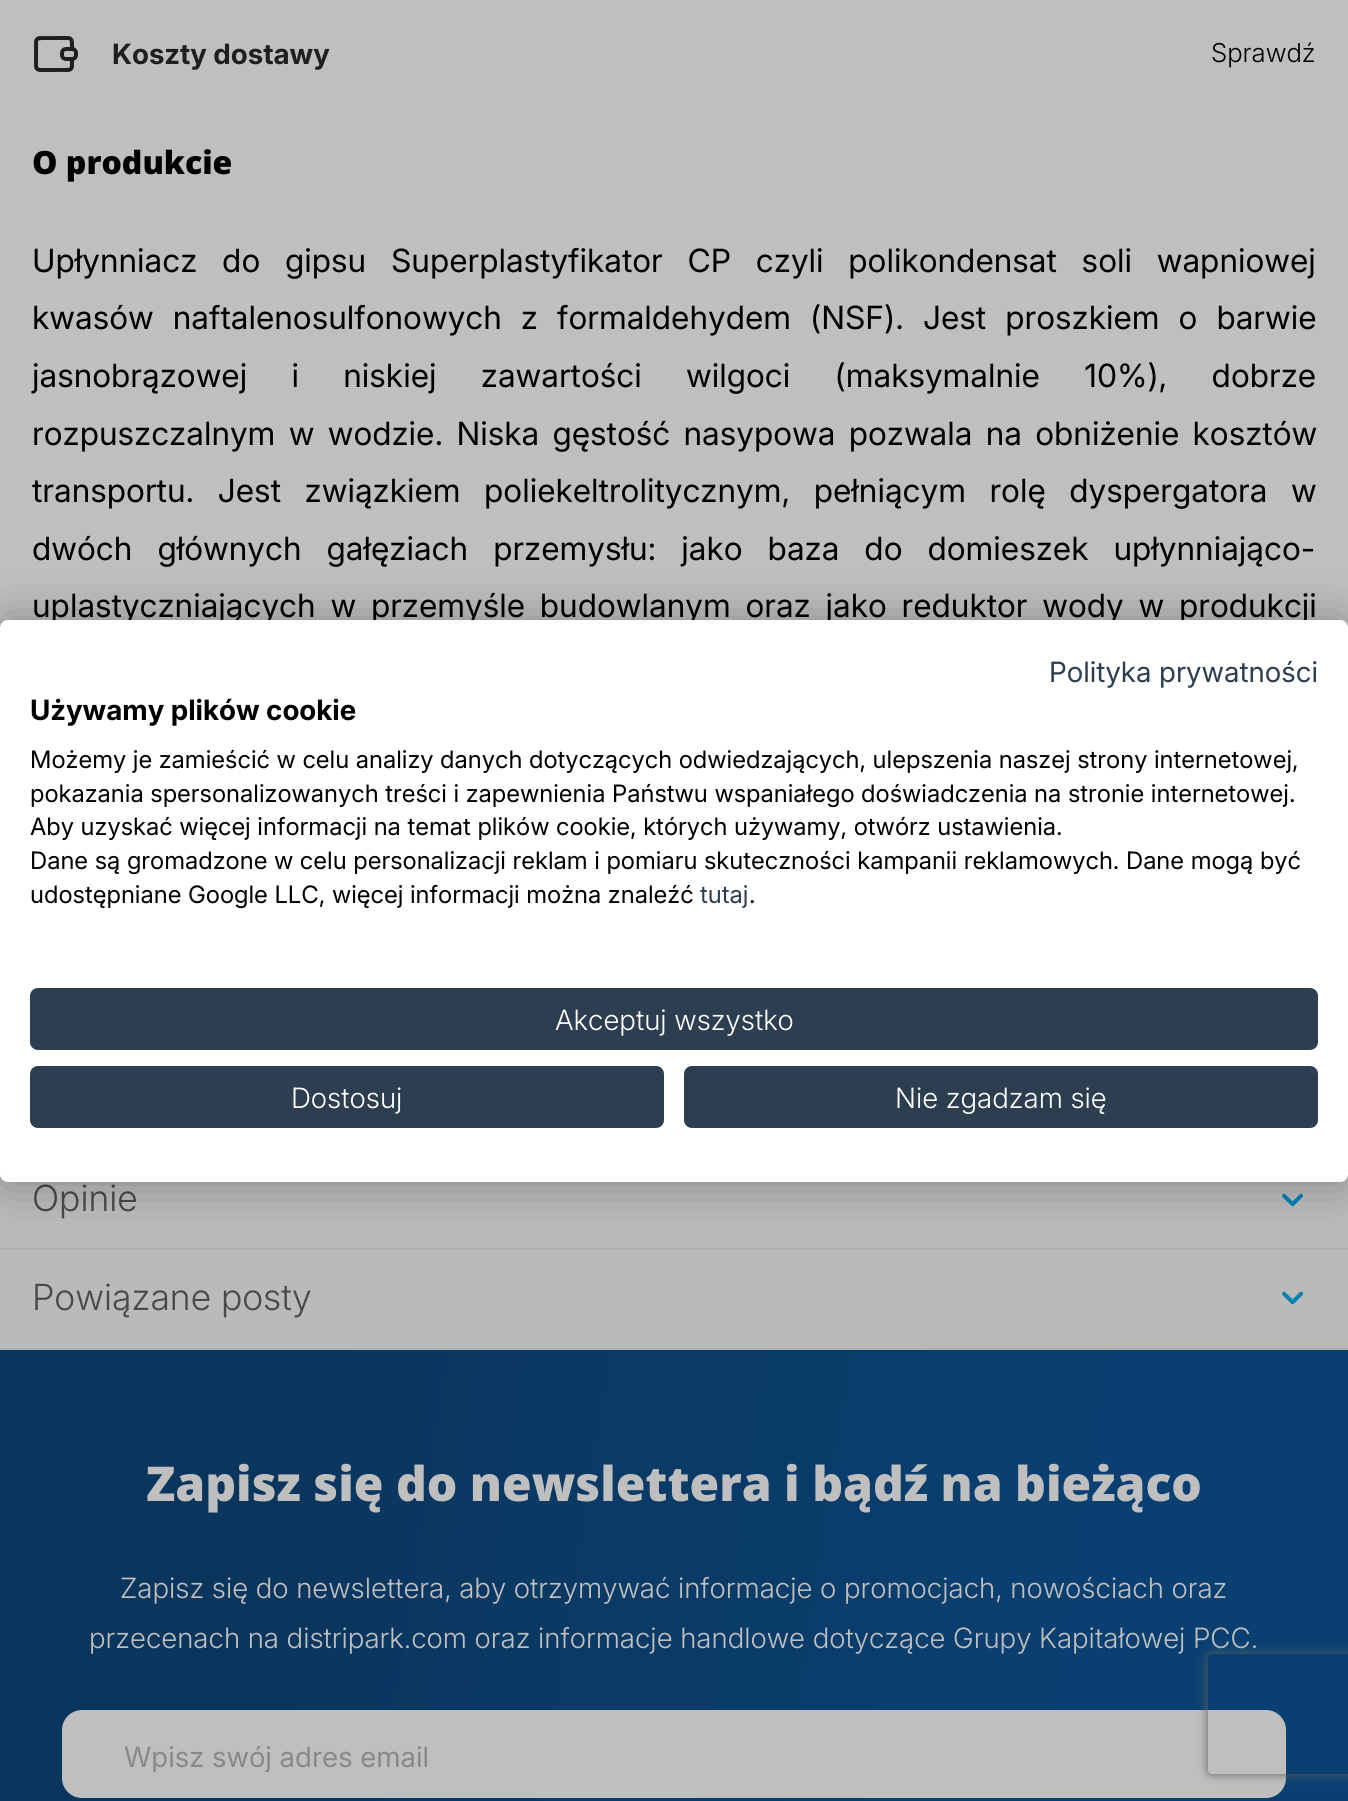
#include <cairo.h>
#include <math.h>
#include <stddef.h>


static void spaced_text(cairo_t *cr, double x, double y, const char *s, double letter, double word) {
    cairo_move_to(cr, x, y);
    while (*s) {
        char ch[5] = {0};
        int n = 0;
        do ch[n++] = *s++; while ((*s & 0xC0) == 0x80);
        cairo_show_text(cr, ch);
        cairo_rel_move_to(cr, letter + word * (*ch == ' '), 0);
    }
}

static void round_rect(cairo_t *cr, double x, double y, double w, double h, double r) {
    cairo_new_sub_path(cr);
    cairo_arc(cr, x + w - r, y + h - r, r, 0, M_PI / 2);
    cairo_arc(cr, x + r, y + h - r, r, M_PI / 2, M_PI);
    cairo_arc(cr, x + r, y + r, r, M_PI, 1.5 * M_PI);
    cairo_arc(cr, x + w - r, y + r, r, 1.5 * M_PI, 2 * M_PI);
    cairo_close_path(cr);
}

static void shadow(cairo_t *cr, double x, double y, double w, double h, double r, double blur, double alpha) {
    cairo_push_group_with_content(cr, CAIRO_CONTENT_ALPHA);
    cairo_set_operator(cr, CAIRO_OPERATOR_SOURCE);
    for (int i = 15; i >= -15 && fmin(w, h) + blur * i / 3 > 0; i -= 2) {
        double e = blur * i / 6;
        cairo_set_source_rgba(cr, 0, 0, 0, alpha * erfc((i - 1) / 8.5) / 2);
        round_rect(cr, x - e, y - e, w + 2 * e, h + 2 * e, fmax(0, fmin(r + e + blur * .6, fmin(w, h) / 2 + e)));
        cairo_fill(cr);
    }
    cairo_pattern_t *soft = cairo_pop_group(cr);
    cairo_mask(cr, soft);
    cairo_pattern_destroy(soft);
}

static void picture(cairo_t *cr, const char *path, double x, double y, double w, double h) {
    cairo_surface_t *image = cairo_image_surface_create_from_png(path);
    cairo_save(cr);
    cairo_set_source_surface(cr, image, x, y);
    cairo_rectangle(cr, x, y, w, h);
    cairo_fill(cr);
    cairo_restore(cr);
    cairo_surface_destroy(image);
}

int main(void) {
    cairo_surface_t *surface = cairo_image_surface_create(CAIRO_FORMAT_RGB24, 1348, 1801);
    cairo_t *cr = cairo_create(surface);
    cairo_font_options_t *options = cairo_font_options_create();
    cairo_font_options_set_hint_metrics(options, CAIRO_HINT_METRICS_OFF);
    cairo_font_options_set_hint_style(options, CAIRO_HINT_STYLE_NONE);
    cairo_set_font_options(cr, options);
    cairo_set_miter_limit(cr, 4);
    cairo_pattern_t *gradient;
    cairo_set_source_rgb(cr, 0.749, 0.749, 0.749);
    cairo_paint(cr);
    picture(cr, "img1.png", 34, 36, 44, 36);
    cairo_select_font_face(cr, "Inter", CAIRO_FONT_SLANT_NORMAL, CAIRO_FONT_WEIGHT_BOLD);
    cairo_set_font_size(cr, 28);
    cairo_set_source_rgb(cr, 0.122, 0.122, 0.122);
    cairo_move_to(cr, 112, 64);
    cairo_show_text(cr, "Koszty dostawy");
    cairo_select_font_face(cr, "Inter Light", CAIRO_FONT_SLANT_NORMAL, CAIRO_FONT_WEIGHT_NORMAL);
    cairo_set_font_size(cr, 26);
    cairo_set_source_rgb(cr, 0, 0, 0);
    cairo_move_to(cr, 1211, 62);
    cairo_show_text(cr, "Sprawdź");
    cairo_select_font_face(cr, "Open Sans ExtraBold", CAIRO_FONT_SLANT_NORMAL, CAIRO_FONT_WEIGHT_NORMAL);
    cairo_set_font_size(cr, 32);
    cairo_move_to(cr, 32, 174);
    cairo_show_text(cr, "O produkcie");
    cairo_select_font_face(cr, "Inter", CAIRO_FONT_SLANT_NORMAL, CAIRO_FONT_WEIGHT_NORMAL);
    spaced_text(cr, 32, 272, "Upłynniacz do gipsu Superplastyfikator CP czyli polikondensat soli wapniowej", 0, 16);
    spaced_text(cr, 32, 329, "kwasów naftalenosulfonowych z formaldehydem (NSF). Jest proszkiem o barwie", 0, 10.25);
    spaced_text(cr, 32, 387, "jasnobrązowej i niskiej zawartości wilgoci (maksymalnie 10%), dobrze", 0, 35.5);
    spaced_text(cr, 32, 445, "rozpuszczalnym w wodzie. Niska gęstość nasypowa pozwala na obniżenie kosztów", 0, 4.5);
    spaced_text(cr, 32, 502, "transportu. Jest związkiem poliekeltrolitycznym, pełniącym rolę dyspergatora w", 0, 14.75);
    spaced_text(cr, 32, 560, "dwóch głównych gałęziach przemysłu: jako baza do domieszek upłynniająco-", 0, 16.25);
    spaced_text(cr, 32, 617, "uplastyczniających w przemyśle budowlanym oraz jako reduktor wody w produkcji", 0, 6);
    cairo_set_source_rgb(cr, 0.729, 0.729, 0.729);
    cairo_rectangle(cr, 0, 1174, 1348, 174);
    cairo_fill(cr);
    cairo_set_source_rgb(cr, 0.69, 0.69, 0.69);
    cairo_rectangle(cr, 0, 1248, 1348, 2);
    cairo_fill(cr);
    cairo_select_font_face(cr, "Inter Light", CAIRO_FONT_SLANT_NORMAL, CAIRO_FONT_WEIGHT_NORMAL);
    cairo_set_font_size(cr, 36);
    cairo_set_source_rgb(cr, 0.286, 0.286, 0.286);
    cairo_move_to(cr, 32, 1211);
    cairo_show_text(cr, "Opinie");
    picture(cr, "img2.png", 1282, 1193, 22, 14);
    cairo_set_source_rgb(cr, 0.69, 0.69, 0.69);
    cairo_rectangle(cr, 0, 1348, 1348, 2);
    cairo_fill(cr);
    cairo_set_source_rgb(cr, 0.286, 0.286, 0.286);
    cairo_move_to(cr, 32, 1310);
    cairo_show_text(cr, "Powiązane posty");
    picture(cr, "img2.png", 1282, 1291, 22, 14);
    gradient = cairo_pattern_create_linear(-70, 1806, 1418, 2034);
    cairo_pattern_add_color_stop_rgba(gradient, 0.22, 0.039, 0.212, 0.369, 1);
    cairo_pattern_add_color_stop_rgba(gradient, 0.74, 0.039, 0.251, 0.443, 1);
    cairo_set_source(cr, gradient);
    cairo_pattern_destroy(gradient);
    cairo_rectangle(cr, 0, 1350, 1348, 451);
    cairo_fill(cr);
    cairo_select_font_face(cr, "Open Sans ExtraBold", CAIRO_FONT_SLANT_NORMAL, CAIRO_FONT_WEIGHT_NORMAL);
    cairo_set_font_size(cr, 48);
    cairo_set_source_rgb(cr, 0.749, 0.749, 0.749);
    cairo_move_to(cr, 146, 1501);
    cairo_show_text(cr, "Zapisz się do newslettera i bądź na bieżąco");
    cairo_select_font_face(cr, "Inter Light", CAIRO_FONT_SLANT_NORMAL, CAIRO_FONT_WEIGHT_NORMAL);
    cairo_set_font_size(cr, 28);
    cairo_move_to(cr, 120, 1598);
    cairo_show_text(cr, "Zapisz się do newslettera, aby otrzymywać informacje o promocjach, nowościach oraz");
    cairo_move_to(cr, 89, 1648);
    cairo_show_text(cr, "przecenach na distripark.com oraz informacje handlowe dotyczące Grupy Kapitałowej PCC.");
    round_rect(cr, 63, 1711, 1222, 86, 19);
    cairo_fill_preserve(cr);
    cairo_stroke(cr);
    cairo_save(cr);
    cairo_rectangle(cr, 124, 1738, 1100, 34);
    cairo_clip(cr);
    cairo_select_font_face(cr, "Inter", CAIRO_FONT_SLANT_NORMAL, CAIRO_FONT_WEIGHT_NORMAL);
    cairo_set_source_rgb(cr, 0.537, 0.537, 0.537);
    cairo_move_to(cr, 124, 1767);
    cairo_show_text(cr, "Wpisz swój adres email");
    cairo_restore(cr);
    cairo_set_source_rgb(cr, 0, 0, 0);
    shadow(cr, 0, 620, 1348, 562, 8, 24, 0.3);
    cairo_set_source_rgb(cr, 1, 1, 1);
    round_rect(cr, 0, 620, 1348, 562, 8);
    cairo_fill(cr);
    cairo_select_font_face(cr, "Inter", CAIRO_FONT_SLANT_NORMAL, CAIRO_FONT_WEIGHT_NORMAL);
    cairo_set_source_rgb(cr, 0.176, 0.243, 0.314);
    cairo_move_to(cr, 1049, 682);
    cairo_show_text(cr, "Polityka prywatności");
    cairo_select_font_face(cr, "Inter", CAIRO_FONT_SLANT_NORMAL, CAIRO_FONT_WEIGHT_BOLD);
    cairo_set_source_rgb(cr, 0, 0, 0);
    cairo_move_to(cr, 30, 720);
    cairo_show_text(cr, "Używamy plików cookie");
    cairo_select_font_face(cr, "Inter", CAIRO_FONT_SLANT_NORMAL, CAIRO_FONT_WEIGHT_NORMAL);
    cairo_set_font_size(cr, 24);
    cairo_move_to(cr, 30, 768);
    cairo_show_text(cr, "Możemy je zamieścić w celu analizy danych dotyczących odwiedzających, ulepszenia naszej strony internetowej,");
    cairo_move_to(cr, 30, 802);
    cairo_show_text(cr, "pokazania spersonalizowanych treści i zapewnienia Państwu wspaniałego doświadczenia na stronie internetowej.");
    cairo_move_to(cr, 30, 835);
    cairo_show_text(cr, "Aby uzyskać więcej informacji na temat plików cookie, których używamy, otwórz ustawienia.");
    cairo_move_to(cr, 30, 869);
    cairo_show_text(cr, "Dane są gromadzone w celu personalizacji reklam i pomiaru skuteczności kampanii reklamowych. Dane mogą być");
    cairo_move_to(cr, 30, 903);
    cairo_show_text(cr, "udostępniane Google LLC, więcej informacji można znaleźć");
    cairo_set_source_rgb(cr, 0.176, 0.243, 0.314);
    cairo_move_to(cr, 700, 903);
    cairo_show_text(cr, "tutaj");
    cairo_set_source_rgb(cr, 0, 0, 0);
    cairo_move_to(cr, 749, 903);
    cairo_show_text(cr, ".");
    cairo_set_source_rgb(cr, 0.176, 0.243, 0.314);
    round_rect(cr, 31, 989, 1286, 60, 7);
    cairo_fill_preserve(cr);
    cairo_stroke(cr);
    cairo_select_font_face(cr, "Inter Light", CAIRO_FONT_SLANT_NORMAL, CAIRO_FONT_WEIGHT_NORMAL);
    cairo_set_font_size(cr, 28);
    cairo_set_source_rgb(cr, 1, 1, 1);
    cairo_move_to(cr, 555, 1030);
    cairo_show_text(cr, "Akceptuj wszystko");
    cairo_set_source_rgb(cr, 0.176, 0.243, 0.314);
    round_rect(cr, 31, 1067, 632, 60, 7);
    cairo_fill_preserve(cr);
    cairo_stroke(cr);
    cairo_set_source_rgb(cr, 1, 1, 1);
    cairo_move_to(cr, 291, 1108);
    cairo_show_text(cr, "Dostosuj");
    cairo_set_source_rgb(cr, 0.176, 0.243, 0.314);
    round_rect(cr, 685, 1067, 632, 60, 7);
    cairo_fill_preserve(cr);
    cairo_stroke(cr);
    cairo_set_source_rgb(cr, 1, 1, 1);
    cairo_move_to(cr, 895, 1108);
    cairo_show_text(cr, "Nie zgadzam się");
    cairo_save(cr);
    cairo_set_fill_rule(cr, CAIRO_FILL_RULE_EVEN_ODD);
    cairo_new_path(cr);
    cairo_move_to(cr, 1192, 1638);
    cairo_line_to(cr, 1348, 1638);
    cairo_line_to(cr, 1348, 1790);
    cairo_line_to(cr, 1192, 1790);
    cairo_close_path(cr);
    cairo_move_to(cr, 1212, 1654);
    cairo_line_to(cr, 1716, 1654);
    cairo_curve_to(cr, 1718, 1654, 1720, 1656, 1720, 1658);
    cairo_line_to(cr, 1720, 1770);
    cairo_curve_to(cr, 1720, 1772, 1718, 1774, 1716, 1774);
    cairo_line_to(cr, 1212, 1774);
    cairo_curve_to(cr, 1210, 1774, 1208, 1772, 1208, 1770);
    cairo_line_to(cr, 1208, 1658);
    cairo_curve_to(cr, 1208, 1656, 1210, 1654, 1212, 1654);
    cairo_close_path(cr);
    cairo_clip(cr);
    cairo_set_source_rgb(cr, 0.376, 0.376, 0.376);
    shadow(cr, 1208, 1654, 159, 120, 4, 5, 1);
    cairo_restore(cr);
    cairo_surface_write_to_png(surface, "page.png");
    cairo_font_options_destroy(options);
    cairo_destroy(cr);
    cairo_surface_destroy(surface);
    return 0;
}
